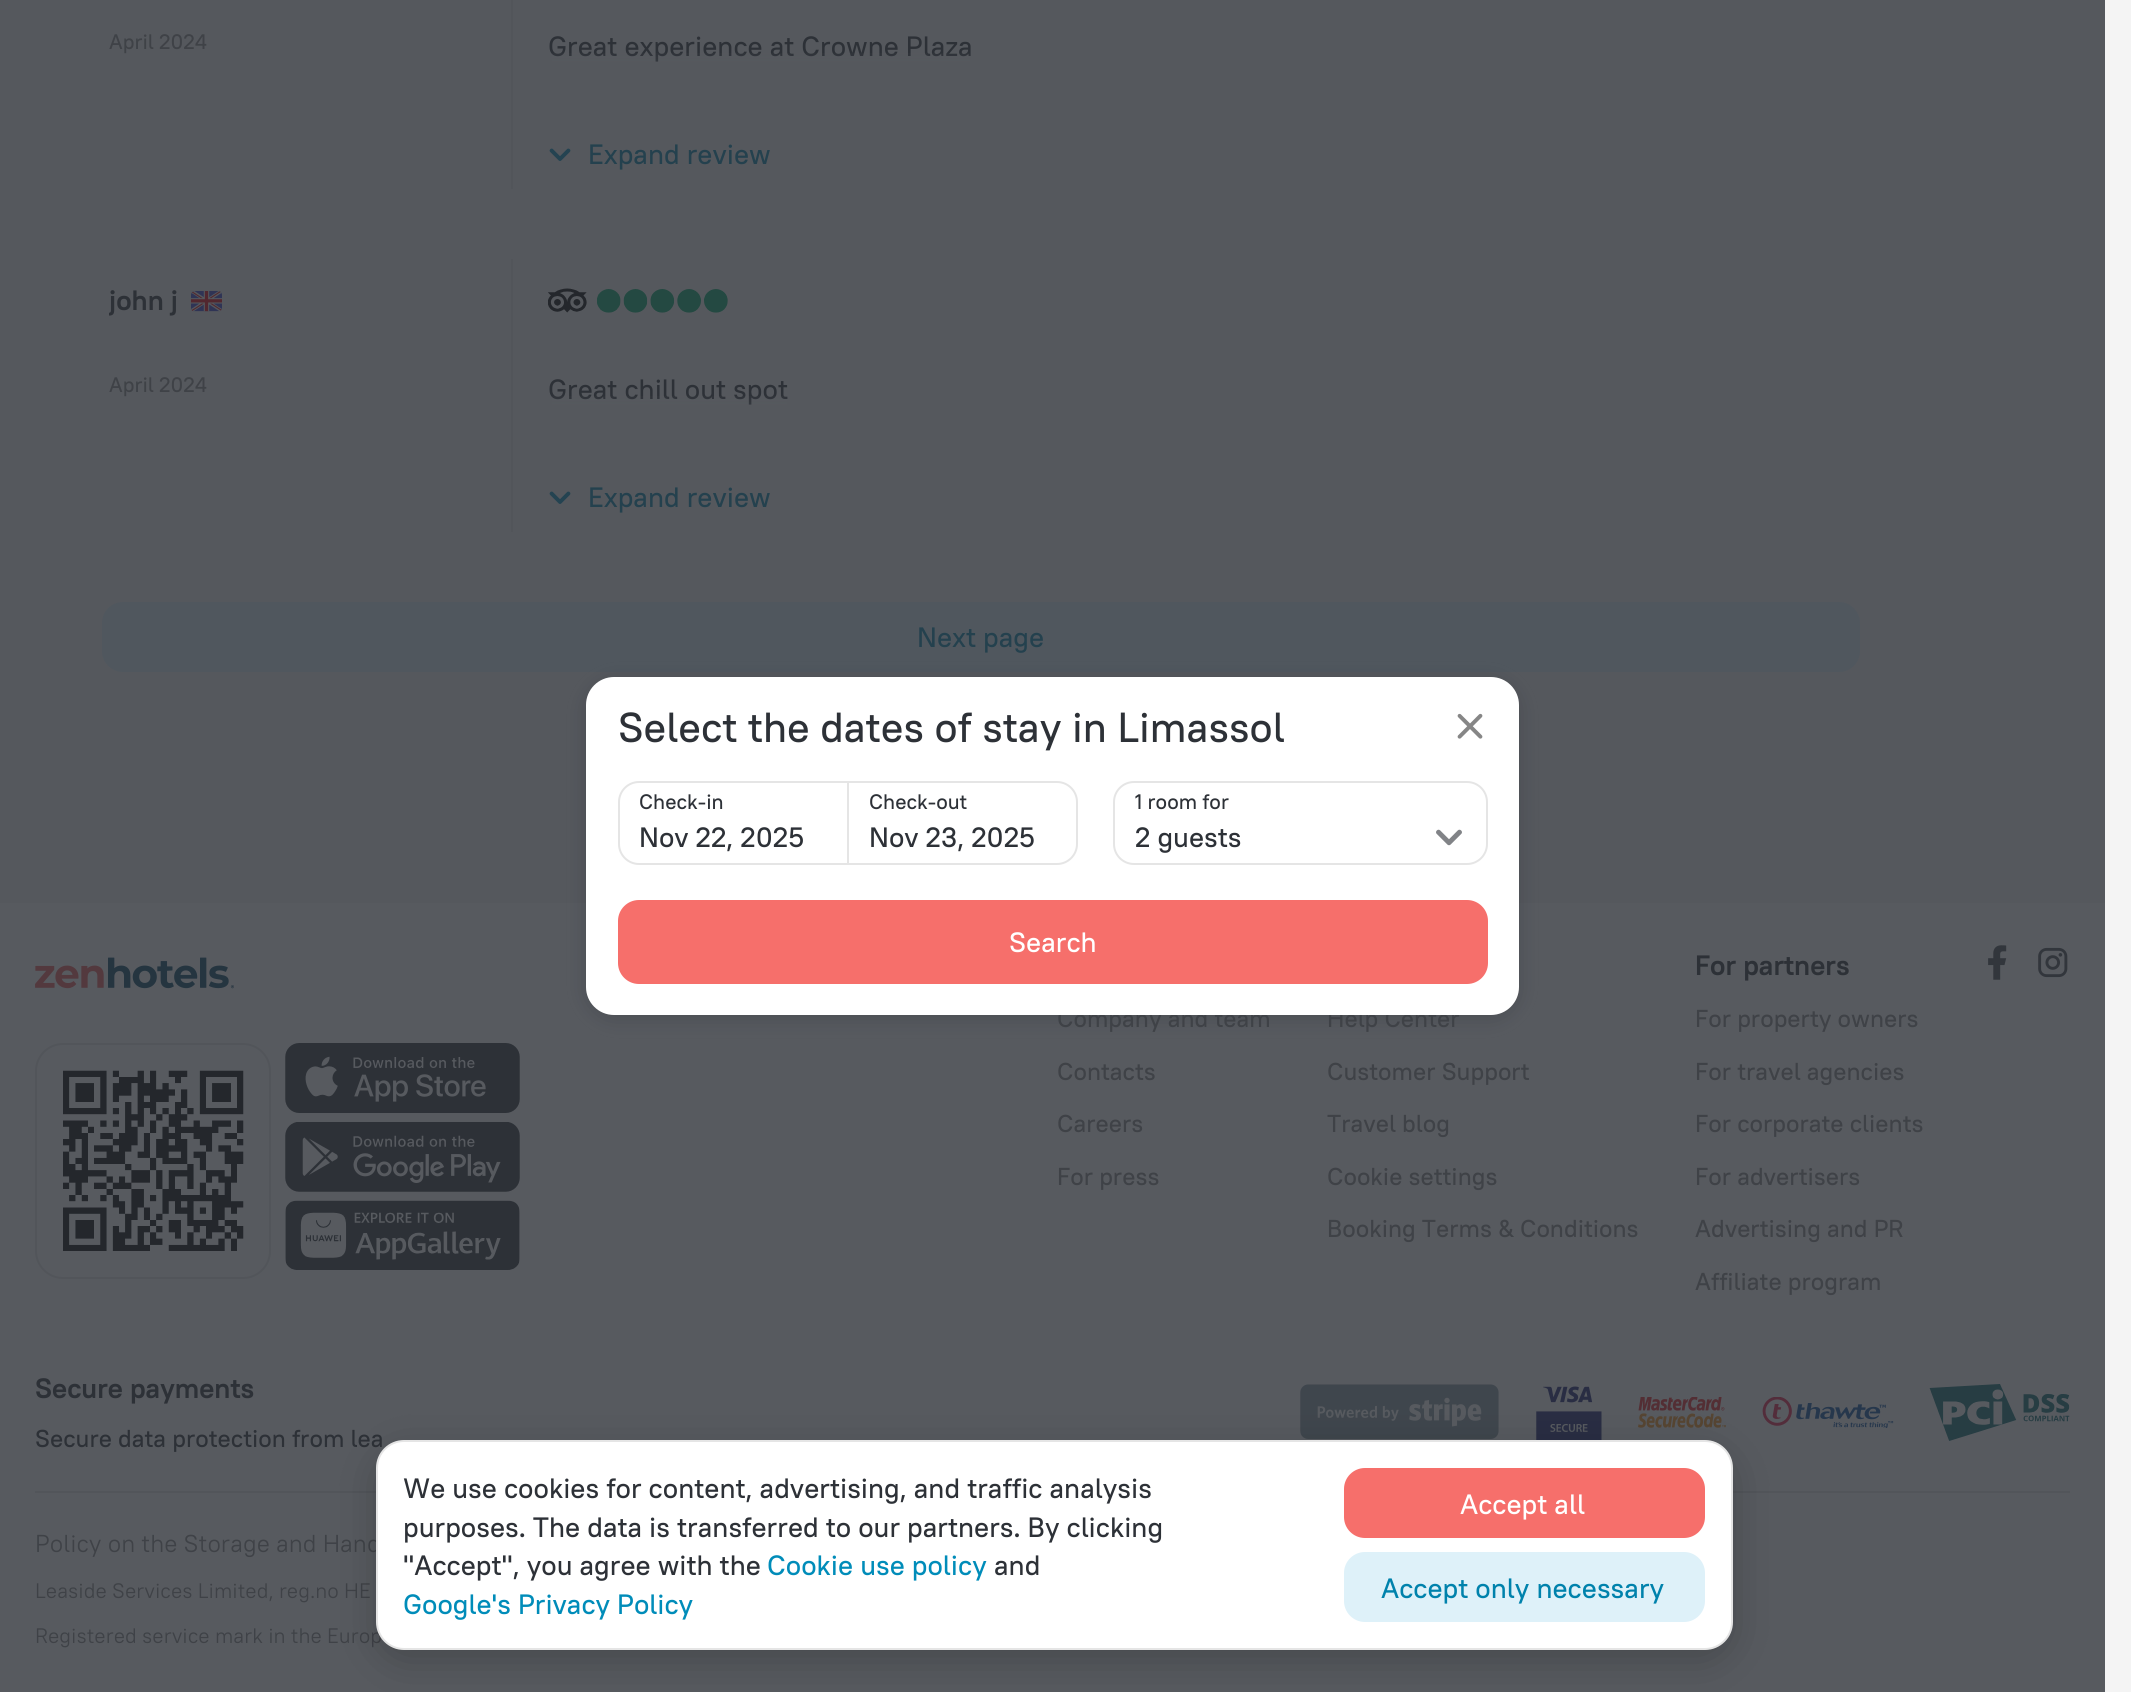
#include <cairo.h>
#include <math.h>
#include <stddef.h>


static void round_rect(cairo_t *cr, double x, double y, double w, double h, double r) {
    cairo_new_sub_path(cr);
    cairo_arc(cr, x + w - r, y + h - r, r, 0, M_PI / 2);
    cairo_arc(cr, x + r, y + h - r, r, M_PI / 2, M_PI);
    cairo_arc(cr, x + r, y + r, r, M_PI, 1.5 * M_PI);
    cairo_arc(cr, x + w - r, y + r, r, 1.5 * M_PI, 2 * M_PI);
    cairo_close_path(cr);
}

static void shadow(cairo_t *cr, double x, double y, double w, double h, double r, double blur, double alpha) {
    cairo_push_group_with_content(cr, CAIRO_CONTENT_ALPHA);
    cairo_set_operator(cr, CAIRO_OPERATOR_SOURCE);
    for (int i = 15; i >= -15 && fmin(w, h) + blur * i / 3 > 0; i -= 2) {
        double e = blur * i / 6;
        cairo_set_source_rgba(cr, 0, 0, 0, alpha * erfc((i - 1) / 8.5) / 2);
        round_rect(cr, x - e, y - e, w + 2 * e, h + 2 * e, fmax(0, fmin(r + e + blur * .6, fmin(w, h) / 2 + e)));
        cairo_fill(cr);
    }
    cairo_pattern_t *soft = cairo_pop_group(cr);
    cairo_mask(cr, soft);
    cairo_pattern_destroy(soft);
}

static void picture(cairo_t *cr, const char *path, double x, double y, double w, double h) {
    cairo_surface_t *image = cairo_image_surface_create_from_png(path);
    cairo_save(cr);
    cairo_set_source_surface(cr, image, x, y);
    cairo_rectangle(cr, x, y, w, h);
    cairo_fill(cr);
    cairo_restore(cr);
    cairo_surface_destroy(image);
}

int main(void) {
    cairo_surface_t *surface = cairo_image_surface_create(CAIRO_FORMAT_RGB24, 2131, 1692);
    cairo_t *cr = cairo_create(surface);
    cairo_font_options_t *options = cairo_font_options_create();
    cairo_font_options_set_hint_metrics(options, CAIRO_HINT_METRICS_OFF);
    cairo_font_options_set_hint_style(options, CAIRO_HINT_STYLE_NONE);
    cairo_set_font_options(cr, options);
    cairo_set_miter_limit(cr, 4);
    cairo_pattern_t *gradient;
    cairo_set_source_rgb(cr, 0.957, 0.957, 0.957);
    cairo_paint(cr);
    cairo_set_source_rgb(cr, 0.333, 0.345, 0.365);
    cairo_rectangle(cr, 0, 0, 2105, 903);
    cairo_fill(cr);
    cairo_set_source_rgb(cr, 0.322, 0.333, 0.353);
    cairo_rectangle(cr, 511, 0, 2, 189);
    cairo_fill(cr);
    cairo_select_font_face(cr, "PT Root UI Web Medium", CAIRO_FONT_SLANT_NORMAL, CAIRO_FONT_WEIGHT_NORMAL);
    cairo_set_font_size(cr, 21);
    cairo_set_source_rgb(cr, 0.247, 0.259, 0.278);
    cairo_move_to(cr, 109, 49);
    cairo_show_text(cr, "April 2024");
    cairo_set_font_size(cr, 28);
    cairo_set_source_rgb(cr, 0.176, 0.192, 0.216);
    cairo_move_to(cr, 548, 56);
    cairo_show_text(cr, "Great experience at Crowne Plaza");
    gradient = cairo_pattern_create_linear(1205, 49, 1205, 189);
    cairo_pattern_add_color_stop_rgba(gradient, 0, 0.341, 0.353, 0.373, 0);
    cairo_pattern_add_color_stop_rgba(gradient, 0.5, 0.341, 0.353, 0.373, 1);
    cairo_pattern_add_color_stop_rgba(gradient, 1, 0.341, 0.353, 0.373, 1);
    cairo_set_source(cr, gradient);
    cairo_pattern_destroy(gradient);
    cairo_rectangle(cr, 552, 53, 418, 9);
    cairo_fill(cr);
    picture(cr, "img1.png", 549, 148, 22, 13);
    cairo_set_source_rgb(cr, 0.141, 0.255, 0.306);
    cairo_move_to(cr, 588, 164);
    cairo_show_text(cr, "Expand review");
    cairo_set_source_rgb(cr, 0.322, 0.333, 0.353);
    cairo_rectangle(cr, 511, 259, 2, 273);
    cairo_fill(cr);
    cairo_save(cr);
    cairo_rectangle(cr, 109, 284, 68, 33);
    cairo_clip(cr);
    cairo_select_font_face(cr, "PT Root UI Web", CAIRO_FONT_SLANT_NORMAL, CAIRO_FONT_WEIGHT_BOLD);
    cairo_set_source_rgb(cr, 0.176, 0.192, 0.216);
    cairo_move_to(cr, 109, 310);
    cairo_show_text(cr, "john j");
    cairo_restore(cr);
    picture(cr, "img2.png", 191, 291, 31, 21);
    cairo_set_font_size(cr, 21);
    cairo_set_source_rgb(cr, 0.247, 0.259, 0.278);
    cairo_move_to(cr, 109, 392);
    cairo_show_text(cr, "April 2024");
    picture(cr, "img3.png", 548, 288, 180, 25);
    cairo_set_font_size(cr, 28);
    cairo_set_source_rgb(cr, 0.176, 0.192, 0.216);
    cairo_move_to(cr, 548, 399);
    cairo_show_text(cr, "Great chill out spot");
    gradient = cairo_pattern_create_linear(1205, 392, 1205, 532);
    cairo_pattern_add_color_stop_rgba(gradient, 0, 0.341, 0.353, 0.373, 0);
    cairo_pattern_add_color_stop_rgba(gradient, 0.5, 0.341, 0.353, 0.373, 1);
    cairo_pattern_add_color_stop_rgba(gradient, 1, 0.341, 0.353, 0.373, 1);
    cairo_set_source(cr, gradient);
    cairo_pattern_destroy(gradient);
    cairo_rectangle(cr, 552, 396, 235, 9);
    cairo_fill(cr);
    picture(cr, "img1.png", 549, 491, 22, 13);
    cairo_set_source_rgb(cr, 0.141, 0.255, 0.306);
    cairo_move_to(cr, 588, 507);
    cairo_show_text(cr, "Expand review");
    cairo_set_source_rgb(cr, 0.314, 0.341, 0.369);
    round_rect(cr, 102, 602, 1758, 70, 21);
    cairo_fill(cr);
    cairo_set_source_rgb(cr, 0.141, 0.255, 0.306);
    cairo_move_to(cr, 917, 647);
    cairo_show_text(cr, "Next page");
    cairo_set_source_rgb(cr, 0.341, 0.353, 0.373);
    cairo_rectangle(cr, 0, 903, 2105, 789);
    cairo_fill(cr);
    cairo_set_source_rgb(cr, 0.176, 0.192, 0.216);
    shadow(cr, 586, 681, 933, 338, 28, 10.5, 0.3);
    cairo_set_font_size(cr, 24.5);
    cairo_set_source_rgb(cr, 0.247, 0.259, 0.278);
    cairo_move_to(cr, 1057, 1027);
    cairo_show_text(cr, "Company and team");
    cairo_move_to(cr, 1327, 1027);
    cairo_show_text(cr, "Help Center");
    cairo_set_source_rgb(cr, 1, 1, 1);
    round_rect(cr, 586, 677, 933, 338, 28);
    cairo_fill(cr);
    cairo_set_font_size(cr, 42);
    cairo_set_source_rgb(cr, 0.176, 0.192, 0.216);
    cairo_move_to(cr, 618, 742);
    cairo_show_text(cr, "Select the dates of stay in Limassol");
    picture(cr, "img4.png", 1457, 713, 26, 26);
    cairo_new_path(cr);
    cairo_move_to(cr, 639, 782);
    cairo_line_to(cr, 848, 782);
    cairo_line_to(cr, 848, 864);
    cairo_line_to(cr, 639, 864);
    cairo_curve_to(cr, 628, 864, 619, 855, 619, 844);
    cairo_line_to(cr, 619, 802);
    cairo_curve_to(cr, 619, 791, 628, 782, 639, 782);
    cairo_close_path(cr);
    cairo_set_source_rgb(cr, 0.898, 0.898, 0.898);
    cairo_stroke(cr);
    cairo_set_font_size(cr, 21);
    cairo_set_source_rgb(cr, 0.176, 0.192, 0.216);
    cairo_move_to(cr, 639, 809);
    cairo_show_text(cr, "Check-in");
    cairo_set_font_size(cr, 28);
    cairo_move_to(cr, 639, 847);
    cairo_show_text(cr, "Nov 22, 2025");
    cairo_set_source_rgb(cr, 1, 1, 1);
    cairo_new_path(cr);
    cairo_move_to(cr, 848, 782);
    cairo_line_to(cr, 1057, 782);
    cairo_curve_to(cr, 1068, 782, 1077, 791, 1077, 802);
    cairo_line_to(cr, 1077, 844);
    cairo_curve_to(cr, 1077, 855, 1068, 864, 1057, 864);
    cairo_line_to(cr, 848, 864);
    cairo_close_path(cr);
    cairo_fill_preserve(cr);
    cairo_set_source_rgb(cr, 0.898, 0.898, 0.898);
    cairo_stroke(cr);
    cairo_set_font_size(cr, 21);
    cairo_set_source_rgb(cr, 0.176, 0.192, 0.216);
    cairo_move_to(cr, 869, 809);
    cairo_show_text(cr, "Check-out");
    cairo_set_font_size(cr, 28);
    cairo_move_to(cr, 869, 847);
    cairo_show_text(cr, "Nov 23, 2025");
    round_rect(cr, 1114, 782, 373, 82, 20);
    cairo_set_source_rgb(cr, 0.898, 0.898, 0.898);
    cairo_stroke(cr);
    cairo_set_font_size(cr, 21);
    cairo_set_source_rgb(cr, 0.176, 0.192, 0.216);
    cairo_move_to(cr, 1135, 809);
    cairo_show_text(cr, "1 room for");
    cairo_set_font_size(cr, 28);
    cairo_move_to(cr, 1135, 847);
    cairo_show_text(cr, "2 guests");
    picture(cr, "img5.png", 1436, 829, 26, 17);
    cairo_set_source_rgb(cr, 0.961, 0.435, 0.42);
    round_rect(cr, 618, 900, 870, 84, 21);
    cairo_fill(cr);
    cairo_set_source_rgb(cr, 1, 1, 1);
    cairo_move_to(cr, 1009, 952);
    cairo_show_text(cr, "Search");
    picture(cr, "img6.png", 35, 957, 199, 32);
    round_rect(cr, 36, 1044, 234, 234, 27);
    cairo_set_source_rgb(cr, 0.322, 0.333, 0.353);
    cairo_stroke(cr);
    picture(cr, "img7.png", 63, 1070, 181, 181);
    picture(cr, "img8.png", 285, 1043, 235, 70);
    picture(cr, "img9.png", 285, 1122, 235, 70);
    picture(cr, "img10.png", 285, 1200, 235, 70);
    cairo_set_font_size(cr, 24.5);
    cairo_set_source_rgb(cr, 0.247, 0.259, 0.278);
    cairo_move_to(cr, 1057, 1080);
    cairo_show_text(cr, "Contacts");
    cairo_move_to(cr, 1057, 1132);
    cairo_show_text(cr, "Careers");
    cairo_move_to(cr, 1057, 1185);
    cairo_show_text(cr, "For press");
    cairo_move_to(cr, 1327, 1080);
    cairo_show_text(cr, "Customer Support");
    cairo_move_to(cr, 1327, 1132);
    cairo_show_text(cr, "Travel blog");
    cairo_move_to(cr, 1327, 1185);
    cairo_show_text(cr, "Cookie settings");
    cairo_move_to(cr, 1327, 1237);
    cairo_show_text(cr, "Booking Terms & Conditions");
    cairo_select_font_face(cr, "PT Root UI Web", CAIRO_FONT_SLANT_NORMAL, CAIRO_FONT_WEIGHT_BOLD);
    cairo_set_font_size(cr, 28);
    cairo_set_source_rgb(cr, 0.176, 0.192, 0.216);
    cairo_move_to(cr, 1695, 975);
    cairo_show_text(cr, "For partners");
    cairo_select_font_face(cr, "PT Root UI Web Medium", CAIRO_FONT_SLANT_NORMAL, CAIRO_FONT_WEIGHT_NORMAL);
    cairo_set_font_size(cr, 24.5);
    cairo_set_source_rgb(cr, 0.247, 0.259, 0.278);
    cairo_move_to(cr, 1695, 1027);
    cairo_show_text(cr, "For property owners");
    cairo_move_to(cr, 1695, 1080);
    cairo_show_text(cr, "For travel agencies");
    cairo_move_to(cr, 1695, 1132);
    cairo_show_text(cr, "For corporate clients");
    cairo_move_to(cr, 1695, 1185);
    cairo_show_text(cr, "For advertisers");
    cairo_move_to(cr, 1695, 1237);
    cairo_show_text(cr, "Advertising and PR");
    cairo_move_to(cr, 1695, 1290);
    cairo_show_text(cr, "Affiliate program");
    picture(cr, "img11.png", 1988, 945, 19, 35);
    picture(cr, "img12.png", 2038, 947, 30, 31);
    cairo_select_font_face(cr, "PT Root UI Web", CAIRO_FONT_SLANT_NORMAL, CAIRO_FONT_WEIGHT_BOLD);
    cairo_set_font_size(cr, 28);
    cairo_set_source_rgb(cr, 0.176, 0.192, 0.216);
    cairo_move_to(cr, 35, 1398);
    cairo_show_text(cr, "Secure payments");
    cairo_select_font_face(cr, "PT Root UI Web Medium", CAIRO_FONT_SLANT_NORMAL, CAIRO_FONT_WEIGHT_NORMAL);
    cairo_set_font_size(cr, 24.5);
    cairo_move_to(cr, 35, 1447);
    cairo_show_text(cr, "Secure data protection from lea");
    picture(cr, "img13.png", 1300, 1384, 199, 55);
    picture(cr, "img14.png", 1536, 1386, 66, 54);
    picture(cr, "img15.png", 1638, 1397, 88, 31);
    picture(cr, "img16.png", 1762, 1397, 132, 31);
    picture(cr, "img17.png", 1929, 1384, 141, 57);
    cairo_set_source_rgb(cr, 0.322, 0.333, 0.353);
    cairo_rectangle(cr, 35, 1491, 2035, 2);
    cairo_fill(cr);
    cairo_select_font_face(cr, "PT Root UI Web", CAIRO_FONT_SLANT_NORMAL, CAIRO_FONT_WEIGHT_NORMAL);
    cairo_set_source_rgb(cr, 0.247, 0.259, 0.278);
    cairo_move_to(cr, 35, 1552);
    cairo_show_text(cr, "Policy on the Storage and Hand");
    cairo_set_font_size(cr, 21);
    cairo_move_to(cr, 35, 1598);
    cairo_show_text(cr, "Leaside Services Limited, reg.no HE");
    cairo_move_to(cr, 35, 1643);
    cairo_show_text(cr, "Registered service mark in the Europ");
    cairo_set_source_rgb(cr, 0, 0, 0);
    shadow(cr, 376, 1451, 1357, 210, 28, 20, 0.2);
    cairo_set_source_rgb(cr, 1, 1, 1);
    round_rect(cr, 377, 1441, 1355, 208, 27);
    cairo_fill_preserve(cr);
    cairo_set_source_rgb(cr, 0.898, 0.898, 0.898);
    cairo_stroke(cr);
    cairo_select_font_face(cr, "PT Root UI Web Medium", CAIRO_FONT_SLANT_NORMAL, CAIRO_FONT_WEIGHT_NORMAL);
    cairo_set_font_size(cr, 28);
    cairo_set_source_rgb(cr, 0.176, 0.192, 0.216);
    cairo_move_to(cr, 403, 1498);
    cairo_show_text(cr, "We use cookies for content, advertising, and traffic analysis");
    cairo_move_to(cr, 403, 1537);
    cairo_show_text(cr, "purposes. The data is transferred to our partners. By clicking");
    cairo_move_to(cr, 403, 1575);
    cairo_show_text(cr, "\"Accept\", you agree with the");
    cairo_set_source_rgb(cr, 0, 0.549, 0.725);
    cairo_move_to(cr, 767, 1575);
    cairo_show_text(cr, "Cookie use policy");
    cairo_set_source_rgb(cr, 0.176, 0.192, 0.216);
    cairo_move_to(cr, 994, 1575);
    cairo_show_text(cr, "and");
    cairo_set_source_rgb(cr, 0, 0.549, 0.725);
    cairo_move_to(cr, 403, 1614);
    cairo_show_text(cr, "Google's Privacy Policy");
    cairo_set_source_rgb(cr, 0.961, 0.435, 0.42);
    round_rect(cr, 1344, 1468, 361, 70, 21);
    cairo_fill(cr);
    cairo_set_source_rgb(cr, 1, 1, 1);
    cairo_move_to(cr, 1460, 1514);
    cairo_show_text(cr, "Accept all");
    cairo_set_source_rgb(cr, 0.871, 0.945, 0.973);
    round_rect(cr, 1344, 1552, 361, 70, 21);
    cairo_fill(cr);
    cairo_set_source_rgb(cr, 0, 0.51, 0.675);
    cairo_move_to(cr, 1381, 1598);
    cairo_show_text(cr, "Accept only necessary");
    cairo_surface_write_to_png(surface, "page.png");
    cairo_font_options_destroy(options);
    cairo_destroy(cr);
    cairo_surface_destroy(surface);
    return 0;
}
